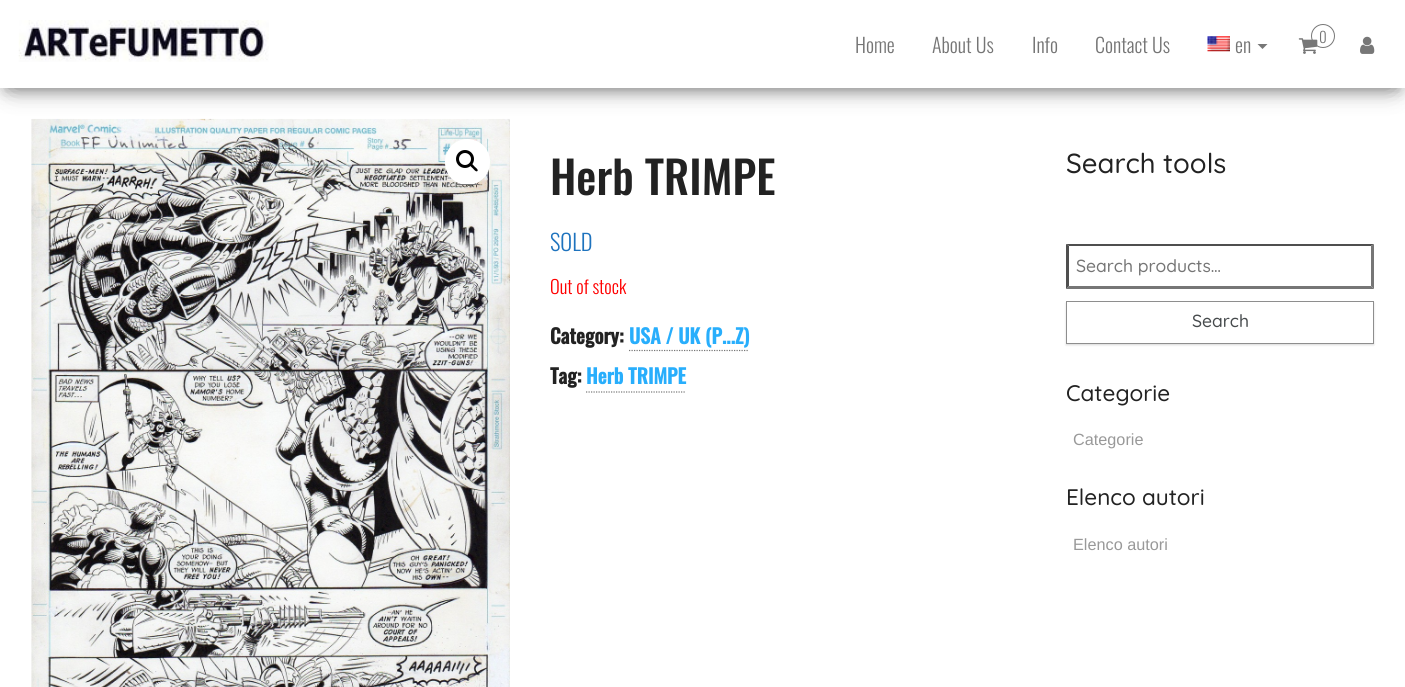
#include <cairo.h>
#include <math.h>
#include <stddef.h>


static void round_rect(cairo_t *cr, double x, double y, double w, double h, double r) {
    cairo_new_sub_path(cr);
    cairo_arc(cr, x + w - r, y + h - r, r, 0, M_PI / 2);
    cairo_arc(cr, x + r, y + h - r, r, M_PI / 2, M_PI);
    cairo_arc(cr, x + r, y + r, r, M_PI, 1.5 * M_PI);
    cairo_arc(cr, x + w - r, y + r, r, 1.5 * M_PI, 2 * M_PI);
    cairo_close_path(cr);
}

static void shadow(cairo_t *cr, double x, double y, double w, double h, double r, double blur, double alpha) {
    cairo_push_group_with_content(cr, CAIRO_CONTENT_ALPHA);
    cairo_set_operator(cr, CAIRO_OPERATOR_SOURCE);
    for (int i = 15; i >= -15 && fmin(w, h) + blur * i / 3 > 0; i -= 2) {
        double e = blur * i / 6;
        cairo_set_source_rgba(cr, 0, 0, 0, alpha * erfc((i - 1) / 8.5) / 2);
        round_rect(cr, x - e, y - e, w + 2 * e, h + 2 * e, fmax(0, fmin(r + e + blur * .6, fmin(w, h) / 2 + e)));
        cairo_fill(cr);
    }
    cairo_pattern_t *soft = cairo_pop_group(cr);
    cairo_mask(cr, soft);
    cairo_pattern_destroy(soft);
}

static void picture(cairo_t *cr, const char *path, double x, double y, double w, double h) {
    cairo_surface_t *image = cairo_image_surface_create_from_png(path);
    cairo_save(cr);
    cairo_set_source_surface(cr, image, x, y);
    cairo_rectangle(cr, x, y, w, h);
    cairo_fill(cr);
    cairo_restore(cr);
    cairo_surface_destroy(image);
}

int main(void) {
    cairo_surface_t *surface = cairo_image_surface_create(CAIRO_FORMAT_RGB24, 1405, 687);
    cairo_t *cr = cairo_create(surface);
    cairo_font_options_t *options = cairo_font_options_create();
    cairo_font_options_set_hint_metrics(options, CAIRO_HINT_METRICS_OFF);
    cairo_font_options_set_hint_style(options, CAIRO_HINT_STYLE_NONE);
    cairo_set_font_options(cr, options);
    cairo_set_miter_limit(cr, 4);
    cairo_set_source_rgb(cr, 1, 1, 1);
    cairo_paint(cr);
    cairo_set_source_rgb(cr, 0, 0, 0);
    shadow(cr, 6, 16, 1393, 75, 0, 6, 0.2);
    picture(cr, "img5.png", 31, 118, 479, 569);
    shadow(cr, 0, 4, 1405, 87, 0, 12.5, 0.12);
    shadow(cr, 15, 28, 1375, 57, 0, 12.5, 0.42);
    cairo_set_source_rgb(cr, 1, 1, 1);
    cairo_rectangle(cr, 0, 0, 1405, 88);
    cairo_fill(cr);
    picture(cr, "img1.png", 18, 20, 251, 42);
    cairo_select_font_face(cr, "Oswald Light", CAIRO_FONT_SLANT_NORMAL, CAIRO_FONT_WEIGHT_NORMAL);
    cairo_set_font_size(cr, 20);
    cairo_set_source_rgb(cr, 0.459, 0.459, 0.459);
    cairo_move_to(cr, 855, 53);
    cairo_show_text(cr, "Home");
    cairo_move_to(cr, 932, 53);
    cairo_show_text(cr, "About Us");
    cairo_move_to(cr, 1032, 53);
    cairo_show_text(cr, "Info");
    cairo_move_to(cr, 1095, 53);
    cairo_show_text(cr, "Contact Us");
    picture(cr, "img2.png", 1207, 36, 23, 16);
    cairo_move_to(cr, 1235, 53);
    cairo_show_text(cr, "en");
    cairo_set_source_rgb(cr, 0.467, 0.467, 0.467);
    cairo_new_path(cr);
    cairo_move_to(cr, 1257.5, 44);
    cairo_line_to(cr, 1267.5, 44);
    cairo_line_to(cr, 1262.5, 49);
    cairo_close_path(cr);
    cairo_fill(cr);
    picture(cr, "img3.png", 1298, 38, 20, 16);
    cairo_arc(cr, 1323, 36, 11.5, 0, 2 * M_PI);
    cairo_set_line_width(cr, 1);
    cairo_stroke(cr);
    cairo_set_font_size(cr, 15);
    cairo_set_source_rgb(cr, 0.459, 0.459, 0.459);
    cairo_move_to(cr, 1319, 43);
    cairo_show_text(cr, "0");
    picture(cr, "img4.png", 1360, 36, 15, 18);
    cairo_set_source_rgb(cr, 1, 1, 1);
    round_rect(cr, 445, 139, 45, 46, 22.5);
    cairo_fill(cr);
    cairo_set_source_rgb(cr, 0.467, 0.467, 0.467);
    cairo_rectangle(cr, 456, 184, 23, 1);
    cairo_fill(cr);
    cairo_arc(cr, 465, 159, 7.5, 0, 2 * M_PI);
    cairo_set_source_rgb(cr, 0, 0, 0);
    cairo_set_line_width(cr, 3);
    cairo_stroke(cr);
    cairo_new_path(cr);
    cairo_move_to(cr, 470.5, 164);
    cairo_curve_to(cr, 471.5, 162.5, 474, 166, 474.5, 166.5);
    cairo_curve_to(cr, 475.5, 167.5, 478.5, 169.5, 477.5, 171);
    cairo_curve_to(cr, 476, 172.5, 473.5, 169, 473, 168.5);
    cairo_curve_to(cr, 472, 167.5, 469, 165.5, 470.5, 164);
    cairo_close_path(cr);
    cairo_fill(cr);
    cairo_select_font_face(cr, "Oswald Medium", CAIRO_FONT_SLANT_NORMAL, CAIRO_FONT_WEIGHT_NORMAL);
    cairo_set_font_size(cr, 45);
    cairo_set_source_rgb(cr, 0.133, 0.133, 0.133);
    cairo_move_to(cr, 550, 195);
    cairo_show_text(cr, "Herb TRIMPE");
    cairo_select_font_face(cr, "Oswald Light", CAIRO_FONT_SLANT_NORMAL, CAIRO_FONT_WEIGHT_NORMAL);
    cairo_set_font_size(cr, 22.5);
    cairo_set_source_rgb(cr, 0.118, 0.451, 0.745);
    cairo_move_to(cr, 550, 251);
    cairo_show_text(cr, "SOLD");
    cairo_set_font_size(cr, 18.5);
    cairo_set_source_rgb(cr, 1, 0, 0);
    cairo_move_to(cr, 550, 294);
    cairo_show_text(cr, "Out of stock");
    cairo_select_font_face(cr, "Oswald", CAIRO_FONT_SLANT_NORMAL, CAIRO_FONT_WEIGHT_BOLD);
    cairo_set_font_size(cr, 20);
    cairo_set_source_rgb(cr, 0.133, 0.133, 0.133);
    cairo_move_to(cr, 550, 344);
    cairo_show_text(cr, "Category:");
    cairo_set_source_rgb(cr, 0.157, 0.682, 0.988);
    cairo_move_to(cr, 629, 344);
    cairo_show_text(cr, "USA / UK (P...Z)");
    cairo_new_path(cr);
    cairo_move_to(cr, 629, 350.5);
    cairo_line_to(cr, 749, 350.5);
    cairo_set_source_rgb(cr, 0.467, 0.467, 0.467);
    cairo_set_line_width(cr, 1.2);
    cairo_set_dash(cr, (double[]){1.25, 1.25}, 2, 0);
    cairo_stroke(cr);
    cairo_set_source_rgb(cr, 0.133, 0.133, 0.133);
    cairo_move_to(cr, 550, 384);
    cairo_show_text(cr, "Tag:");
    cairo_set_source_rgb(cr, 0.157, 0.682, 0.988);
    cairo_move_to(cr, 586, 384);
    cairo_show_text(cr, "Herb TRIMPE");
    cairo_new_path(cr);
    cairo_move_to(cr, 586, 392);
    cairo_line_to(cr, 686, 392);
    cairo_set_source_rgb(cr, 0.467, 0.467, 0.467);
    cairo_stroke(cr);
    cairo_select_font_face(cr, "Quicksand Light", CAIRO_FONT_SLANT_NORMAL, CAIRO_FONT_WEIGHT_NORMAL);
    cairo_set_font_size(cr, 27.5);
    cairo_set_source_rgb(cr, 0.133, 0.133, 0.133);
    cairo_move_to(cr, 1066, 173);
    cairo_show_text(cr, "Search tools");
    cairo_set_source_rgb(cr, 0.31, 0.31, 0.31);
    cairo_new_path(cr);
    cairo_move_to(cr, 1066, 244);
    cairo_line_to(cr, 1374, 244);
    cairo_line_to(cr, 1371, 246);
    cairo_line_to(cr, 1069, 246);
    cairo_close_path(cr);
    cairo_fill(cr);
    cairo_set_source_rgb(cr, 0.463, 0.463, 0.463);
    cairo_new_path(cr);
    cairo_move_to(cr, 1374, 244);
    cairo_line_to(cr, 1374, 289);
    cairo_line_to(cr, 1371, 286);
    cairo_line_to(cr, 1371, 246);
    cairo_close_path(cr);
    cairo_fill(cr);
    cairo_new_path(cr);
    cairo_move_to(cr, 1374, 289);
    cairo_line_to(cr, 1066, 289);
    cairo_line_to(cr, 1069, 286);
    cairo_line_to(cr, 1371, 286);
    cairo_close_path(cr);
    cairo_fill(cr);
    cairo_set_source_rgb(cr, 0.31, 0.31, 0.31);
    cairo_new_path(cr);
    cairo_move_to(cr, 1066, 289);
    cairo_line_to(cr, 1066, 244);
    cairo_line_to(cr, 1069, 246);
    cairo_line_to(cr, 1069, 286);
    cairo_close_path(cr);
    cairo_fill(cr);
    cairo_set_font_size(cr, 17.5);
    cairo_set_source_rgb(cr, 0.459, 0.459, 0.459);
    cairo_move_to(cr, 1076, 272);
    cairo_show_text(cr, "Search products…");
    cairo_set_source_rgb(cr, 0, 0, 0);
    shadow(cr, 1066, 303, 308, 42, 0, 1, 0.15);
    cairo_set_source_rgb(cr, 1, 1, 1);
    cairo_rectangle(cr, 1066.5, 301.5, 307, 42);
    cairo_fill_preserve(cr);
    cairo_set_source_rgb(cr, 0.557, 0.557, 0.557);
    cairo_set_line_width(cr, 1);
    cairo_set_dash(cr, NULL, 0, 0);
    cairo_stroke(cr);
    cairo_set_source_rgb(cr, 0.275, 0.29, 0.298);
    cairo_move_to(cr, 1192, 327);
    cairo_show_text(cr, "Search");
    cairo_set_font_size(cr, 22.5);
    cairo_set_source_rgb(cr, 0.133, 0.133, 0.133);
    cairo_move_to(cr, 1066, 401);
    cairo_show_text(cr, "Categorie");
    cairo_select_font_face(cr, "Liberation Sans", CAIRO_FONT_SLANT_NORMAL, CAIRO_FONT_WEIGHT_NORMAL);
    cairo_set_font_size(cr, 16.25);
    cairo_set_source_rgb(cr, 0.6, 0.6, 0.6);
    cairo_move_to(cr, 1073, 445);
    cairo_show_text(cr, "Categorie");
    cairo_select_font_face(cr, "Quicksand Light", CAIRO_FONT_SLANT_NORMAL, CAIRO_FONT_WEIGHT_NORMAL);
    cairo_set_font_size(cr, 22.5);
    cairo_set_source_rgb(cr, 0.133, 0.133, 0.133);
    cairo_move_to(cr, 1066, 505);
    cairo_show_text(cr, "Elenco autori");
    cairo_select_font_face(cr, "Liberation Sans", CAIRO_FONT_SLANT_NORMAL, CAIRO_FONT_WEIGHT_NORMAL);
    cairo_set_font_size(cr, 16.25);
    cairo_set_source_rgb(cr, 0.6, 0.6, 0.6);
    cairo_move_to(cr, 1073, 550);
    cairo_show_text(cr, "Elenco autori");
    cairo_surface_write_to_png(surface, "page.png");
    cairo_font_options_destroy(options);
    cairo_destroy(cr);
    cairo_surface_destroy(surface);
    return 0;
}
